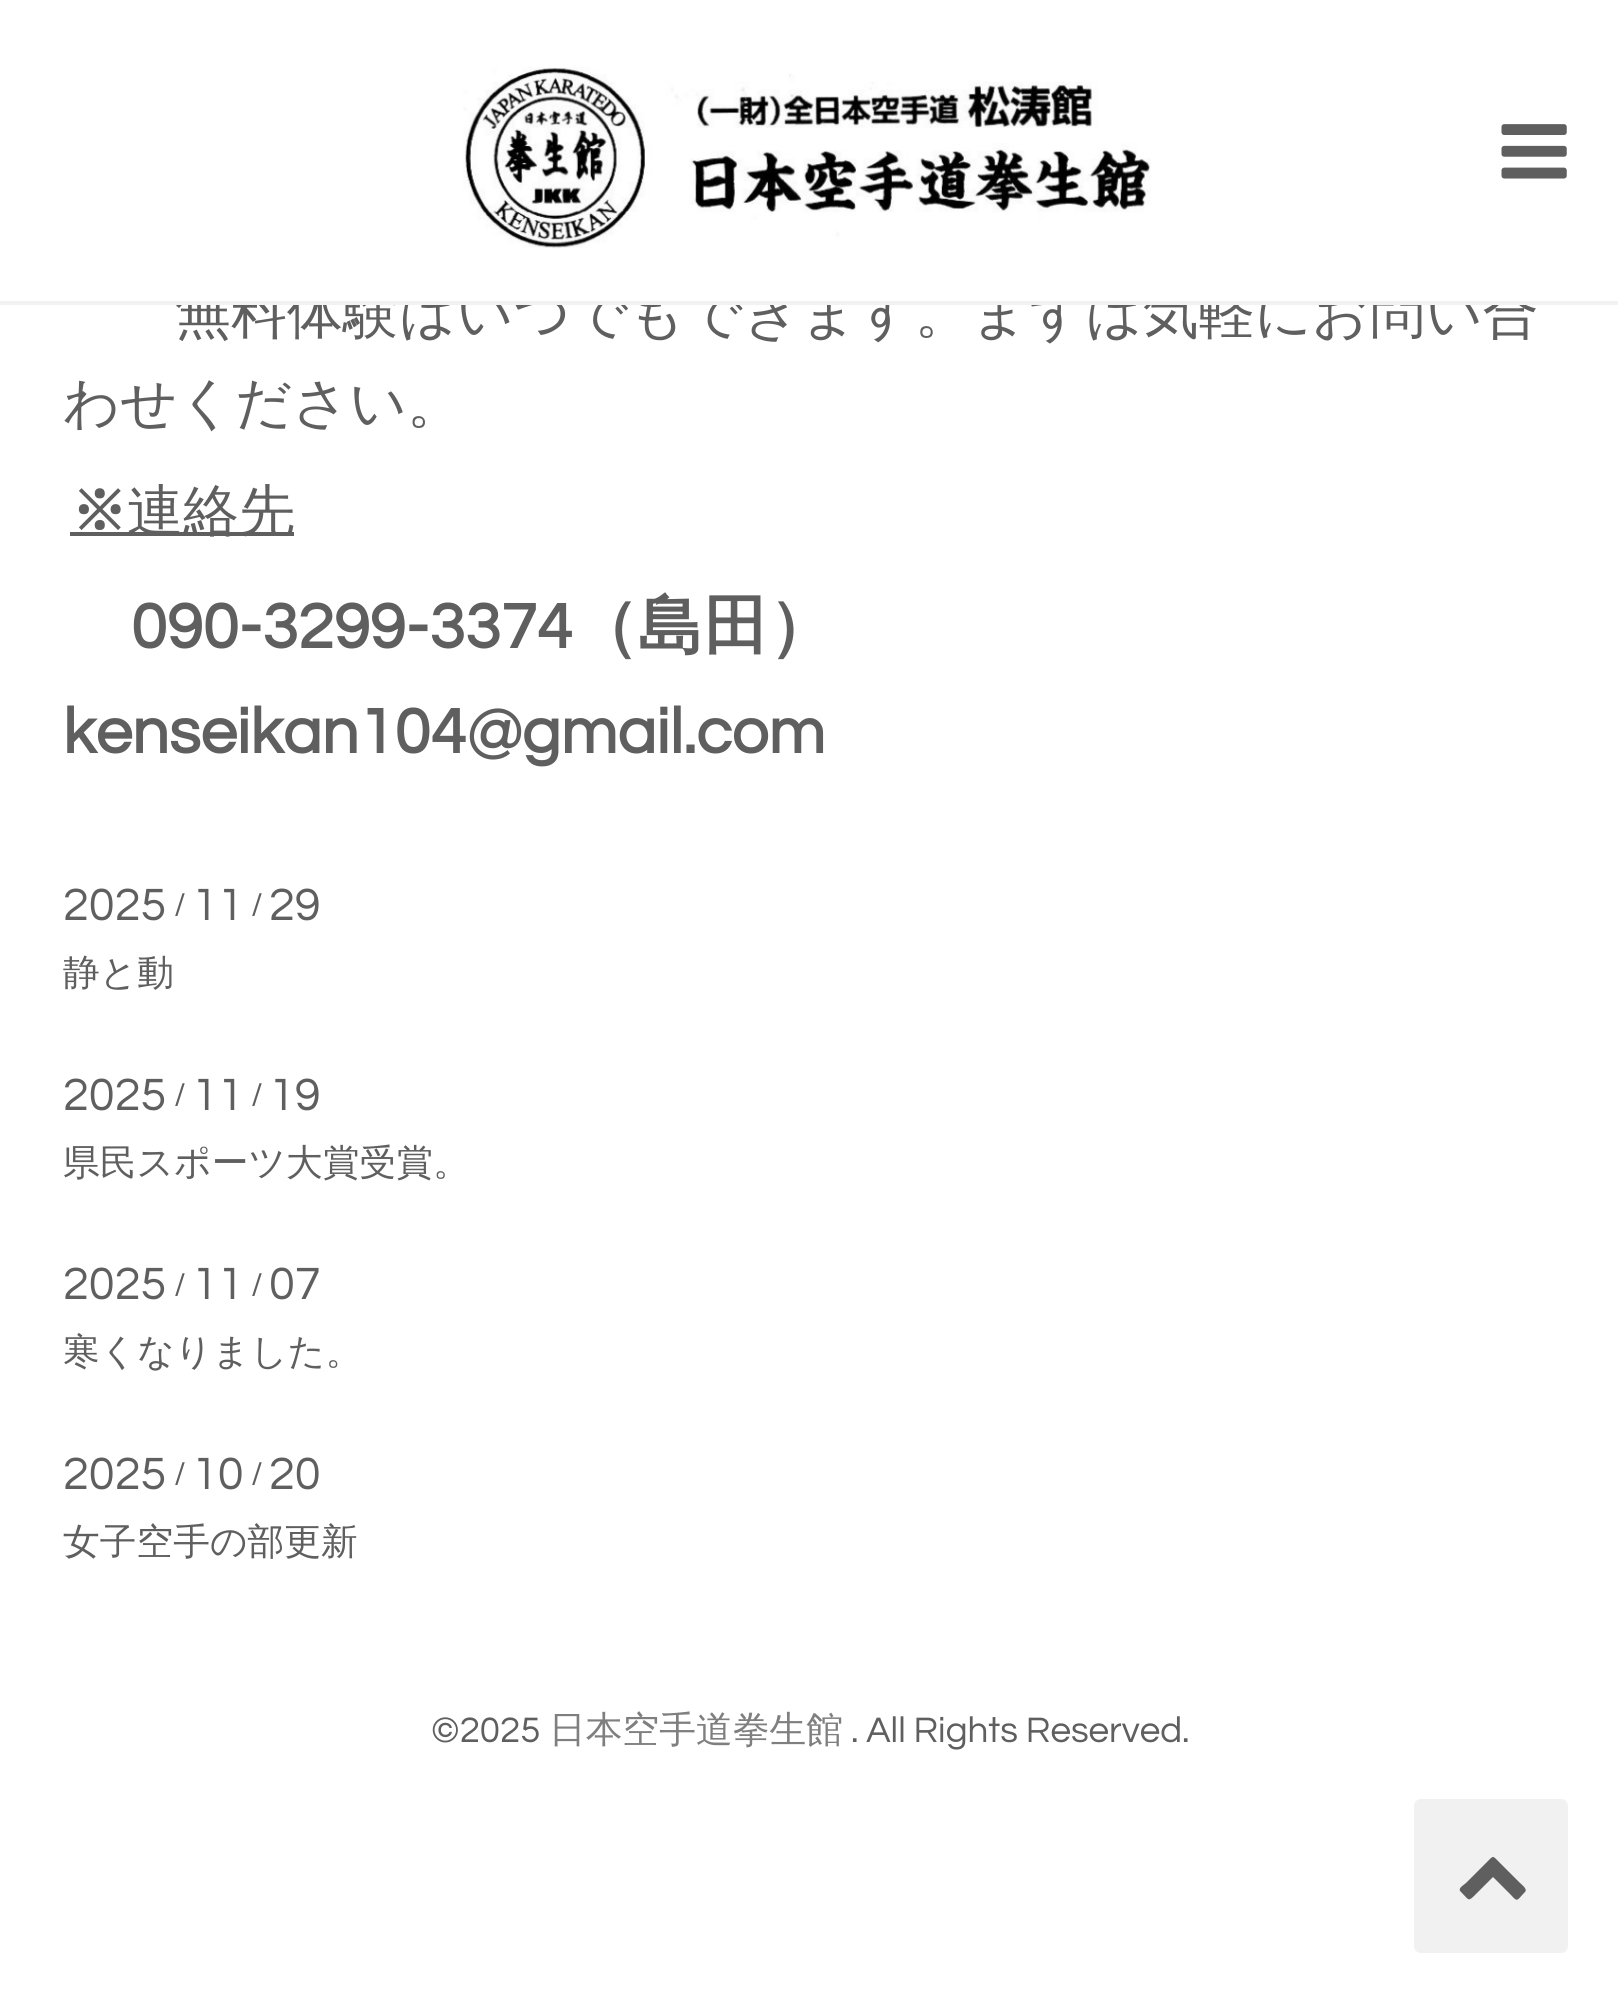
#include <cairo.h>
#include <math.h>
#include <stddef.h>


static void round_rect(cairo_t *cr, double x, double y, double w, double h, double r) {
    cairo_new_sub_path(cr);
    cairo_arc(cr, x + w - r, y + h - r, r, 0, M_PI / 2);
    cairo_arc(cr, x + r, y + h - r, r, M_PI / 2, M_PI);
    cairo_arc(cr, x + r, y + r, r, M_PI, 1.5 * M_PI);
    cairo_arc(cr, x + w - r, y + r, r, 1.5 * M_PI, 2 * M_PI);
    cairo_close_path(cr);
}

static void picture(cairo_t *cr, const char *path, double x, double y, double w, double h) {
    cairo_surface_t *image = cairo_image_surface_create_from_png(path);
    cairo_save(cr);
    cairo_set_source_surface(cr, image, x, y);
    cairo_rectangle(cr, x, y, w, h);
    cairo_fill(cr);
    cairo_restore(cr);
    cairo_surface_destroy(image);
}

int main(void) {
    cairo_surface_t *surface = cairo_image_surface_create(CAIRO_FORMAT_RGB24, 1618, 2003);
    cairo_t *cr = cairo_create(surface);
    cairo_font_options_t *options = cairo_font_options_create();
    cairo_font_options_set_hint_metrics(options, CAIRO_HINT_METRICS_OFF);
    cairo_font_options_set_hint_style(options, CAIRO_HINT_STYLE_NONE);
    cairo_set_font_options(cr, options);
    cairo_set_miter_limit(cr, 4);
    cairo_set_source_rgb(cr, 1, 1, 1);
    cairo_paint(cr);
    cairo_select_font_face(cr, "WenQuanYi Zen Hei Medium", CAIRO_FONT_SLANT_NORMAL, CAIRO_FONT_WEIGHT_NORMAL);
    cairo_set_font_size(cr, 56);
    cairo_set_source_rgb(cr, 0.373, 0.373, 0.373);
    cairo_move_to(cr, 175, 332);
    cairo_show_text(cr, "無料体験はいつでもできます。まずは気軽にお問い合");
    cairo_set_source_rgb(cr, 1, 1, 1);
    cairo_rectangle(cr, 180, 285, 1340, 16);
    cairo_fill(cr);
    cairo_set_source_rgb(cr, 0.949, 0.949, 0.949);
    cairo_rectangle(cr, 0, 301, 1618, 4);
    cairo_fill(cr);
    picture(cr, "img1.png", 463, 67, 688, 182);
    picture(cr, "img2.png", 1501, 124, 66, 55);
    cairo_set_source_rgb(cr, 0.373, 0.373, 0.373);
    cairo_move_to(cr, 63, 422);
    cairo_show_text(cr, "わせください。");
    cairo_select_font_face(cr, "WenQuanYi Zen Hei", CAIRO_FONT_SLANT_NORMAL, CAIRO_FONT_WEIGHT_BOLD);
    cairo_move_to(cr, 71, 530);
    cairo_show_text(cr, "※");
    cairo_rectangle(cr, 70, 532, 224, 4);
    cairo_fill(cr);
    cairo_select_font_face(cr, "WenQuanYi Zen Hei Medium", CAIRO_FONT_SLANT_NORMAL, CAIRO_FONT_WEIGHT_NORMAL);
    cairo_move_to(cr, 127, 530);
    cairo_show_text(cr, "連絡先");
    cairo_select_font_face(cr, "Questrial", CAIRO_FONT_SLANT_NORMAL, CAIRO_FONT_WEIGHT_BOLD);
    cairo_set_font_size(cr, 65.25);
    cairo_move_to(cr, 131, 648);
    cairo_show_text(cr, "090-3299-3374");
    cairo_select_font_face(cr, "WenQuanYi Zen Hei", CAIRO_FONT_SLANT_NORMAL, CAIRO_FONT_WEIGHT_BOLD);
    cairo_move_to(cr, 573, 648);
    cairo_show_text(cr, "（島田）");
    cairo_select_font_face(cr, "Questrial", CAIRO_FONT_SLANT_NORMAL, CAIRO_FONT_WEIGHT_BOLD);
    cairo_move_to(cr, 63, 753);
    cairo_show_text(cr, "kenseikan104@gmail.com");
    cairo_select_font_face(cr, "Questrial", CAIRO_FONT_SLANT_NORMAL, CAIRO_FONT_WEIGHT_NORMAL);
    cairo_set_font_size(cr, 47);
    cairo_move_to(cr, 63, 920);
    cairo_show_text(cr, "2025");
    cairo_set_font_size(cr, 32);
    cairo_move_to(cr, 174, 915);
    cairo_show_text(cr, "/");
    cairo_set_font_size(cr, 47);
    cairo_move_to(cr, 192, 920);
    cairo_show_text(cr, "11");
    cairo_set_font_size(cr, 32);
    cairo_move_to(cr, 251, 915);
    cairo_show_text(cr, "/");
    cairo_set_font_size(cr, 47);
    cairo_move_to(cr, 269, 920);
    cairo_show_text(cr, "29");
    cairo_select_font_face(cr, "WenQuanYi Zen Hei Medium", CAIRO_FONT_SLANT_NORMAL, CAIRO_FONT_WEIGHT_NORMAL);
    cairo_set_font_size(cr, 36.75);
    cairo_move_to(cr, 63, 985);
    cairo_show_text(cr, "静と動");
    cairo_select_font_face(cr, "Questrial", CAIRO_FONT_SLANT_NORMAL, CAIRO_FONT_WEIGHT_NORMAL);
    cairo_set_font_size(cr, 47);
    cairo_move_to(cr, 63, 1110);
    cairo_show_text(cr, "2025");
    cairo_set_font_size(cr, 32);
    cairo_move_to(cr, 174, 1105);
    cairo_show_text(cr, "/");
    cairo_set_font_size(cr, 47);
    cairo_move_to(cr, 192, 1110);
    cairo_show_text(cr, "11");
    cairo_set_font_size(cr, 32);
    cairo_move_to(cr, 251, 1105);
    cairo_show_text(cr, "/");
    cairo_set_font_size(cr, 47);
    cairo_move_to(cr, 269, 1110);
    cairo_show_text(cr, "19");
    cairo_select_font_face(cr, "WenQuanYi Zen Hei Medium", CAIRO_FONT_SLANT_NORMAL, CAIRO_FONT_WEIGHT_NORMAL);
    cairo_set_font_size(cr, 36.75);
    cairo_move_to(cr, 63, 1175);
    cairo_show_text(cr, "県民スポーツ大賞受賞。");
    cairo_select_font_face(cr, "Questrial", CAIRO_FONT_SLANT_NORMAL, CAIRO_FONT_WEIGHT_NORMAL);
    cairo_set_font_size(cr, 47);
    cairo_move_to(cr, 63, 1299);
    cairo_show_text(cr, "2025");
    cairo_set_font_size(cr, 32);
    cairo_move_to(cr, 174, 1295);
    cairo_show_text(cr, "/");
    cairo_set_font_size(cr, 47);
    cairo_move_to(cr, 192, 1299);
    cairo_show_text(cr, "11");
    cairo_set_font_size(cr, 32);
    cairo_move_to(cr, 251, 1295);
    cairo_show_text(cr, "/");
    cairo_set_font_size(cr, 47);
    cairo_move_to(cr, 269, 1299);
    cairo_show_text(cr, "07");
    cairo_select_font_face(cr, "WenQuanYi Zen Hei Medium", CAIRO_FONT_SLANT_NORMAL, CAIRO_FONT_WEIGHT_NORMAL);
    cairo_set_font_size(cr, 36.75);
    cairo_move_to(cr, 63, 1364);
    cairo_show_text(cr, "寒くなりました。");
    cairo_select_font_face(cr, "Questrial", CAIRO_FONT_SLANT_NORMAL, CAIRO_FONT_WEIGHT_NORMAL);
    cairo_set_font_size(cr, 47);
    cairo_move_to(cr, 63, 1489);
    cairo_show_text(cr, "2025");
    cairo_set_font_size(cr, 32);
    cairo_move_to(cr, 174, 1484);
    cairo_show_text(cr, "/");
    cairo_set_font_size(cr, 47);
    cairo_move_to(cr, 192, 1489);
    cairo_show_text(cr, "10");
    cairo_set_font_size(cr, 32);
    cairo_move_to(cr, 251, 1484);
    cairo_show_text(cr, "/");
    cairo_set_font_size(cr, 47);
    cairo_move_to(cr, 269, 1489);
    cairo_show_text(cr, "20");
    cairo_select_font_face(cr, "WenQuanYi Zen Hei Medium", CAIRO_FONT_SLANT_NORMAL, CAIRO_FONT_WEIGHT_NORMAL);
    cairo_set_font_size(cr, 36.75);
    cairo_move_to(cr, 63, 1554);
    cairo_show_text(cr, "女子空手の部更新");
    cairo_select_font_face(cr, "Questrial", CAIRO_FONT_SLANT_NORMAL, CAIRO_FONT_WEIGHT_NORMAL);
    cairo_move_to(cr, 431, 1742);
    cairo_show_text(cr, "©2025");
    cairo_select_font_face(cr, "WenQuanYi Zen Hei Medium", CAIRO_FONT_SLANT_NORMAL, CAIRO_FONT_WEIGHT_NORMAL);
    cairo_set_source_rgb(cr, 0.498, 0.498, 0.498);
    cairo_move_to(cr, 549, 1742);
    cairo_show_text(cr, "日本空手道拳生館");
    cairo_select_font_face(cr, "Questrial", CAIRO_FONT_SLANT_NORMAL, CAIRO_FONT_WEIGHT_NORMAL);
    cairo_set_source_rgb(cr, 0.373, 0.373, 0.373);
    cairo_move_to(cr, 851, 1742);
    cairo_show_text(cr, ". All Rights Reserved.");
    cairo_set_source_rgb(cr, 0.945, 0.945, 0.945);
    round_rect(cr, 1414, 1799, 154, 154, 7);
    cairo_fill(cr);
    cairo_set_source_rgb(cr, 0.373, 0.373, 0.373);
    cairo_new_path(cr);
    cairo_move_to(cr, 1525, 1892);
    cairo_curve_to(cr, 1517, 1900, 1518, 1903, 1511, 1895);
    cairo_line_to(cr, 1493, 1877);
    cairo_line_to(cr, 1475, 1895);
    cairo_curve_to(cr, 1468, 1902, 1469, 1900, 1462, 1893);
    cairo_curve_to(cr, 1457, 1889, 1461, 1887, 1466, 1883);
    cairo_line_to(cr, 1486, 1863);
    cairo_curve_to(cr, 1494, 1855, 1492, 1855, 1500, 1863);
    cairo_line_to(cr, 1520, 1883);
    cairo_curve_to(cr, 1521, 1884, 1528, 1889, 1525, 1892);
    cairo_close_path(cr);
    cairo_fill(cr);
    cairo_surface_write_to_png(surface, "page.png");
    cairo_font_options_destroy(options);
    cairo_destroy(cr);
    cairo_surface_destroy(surface);
    return 0;
}
